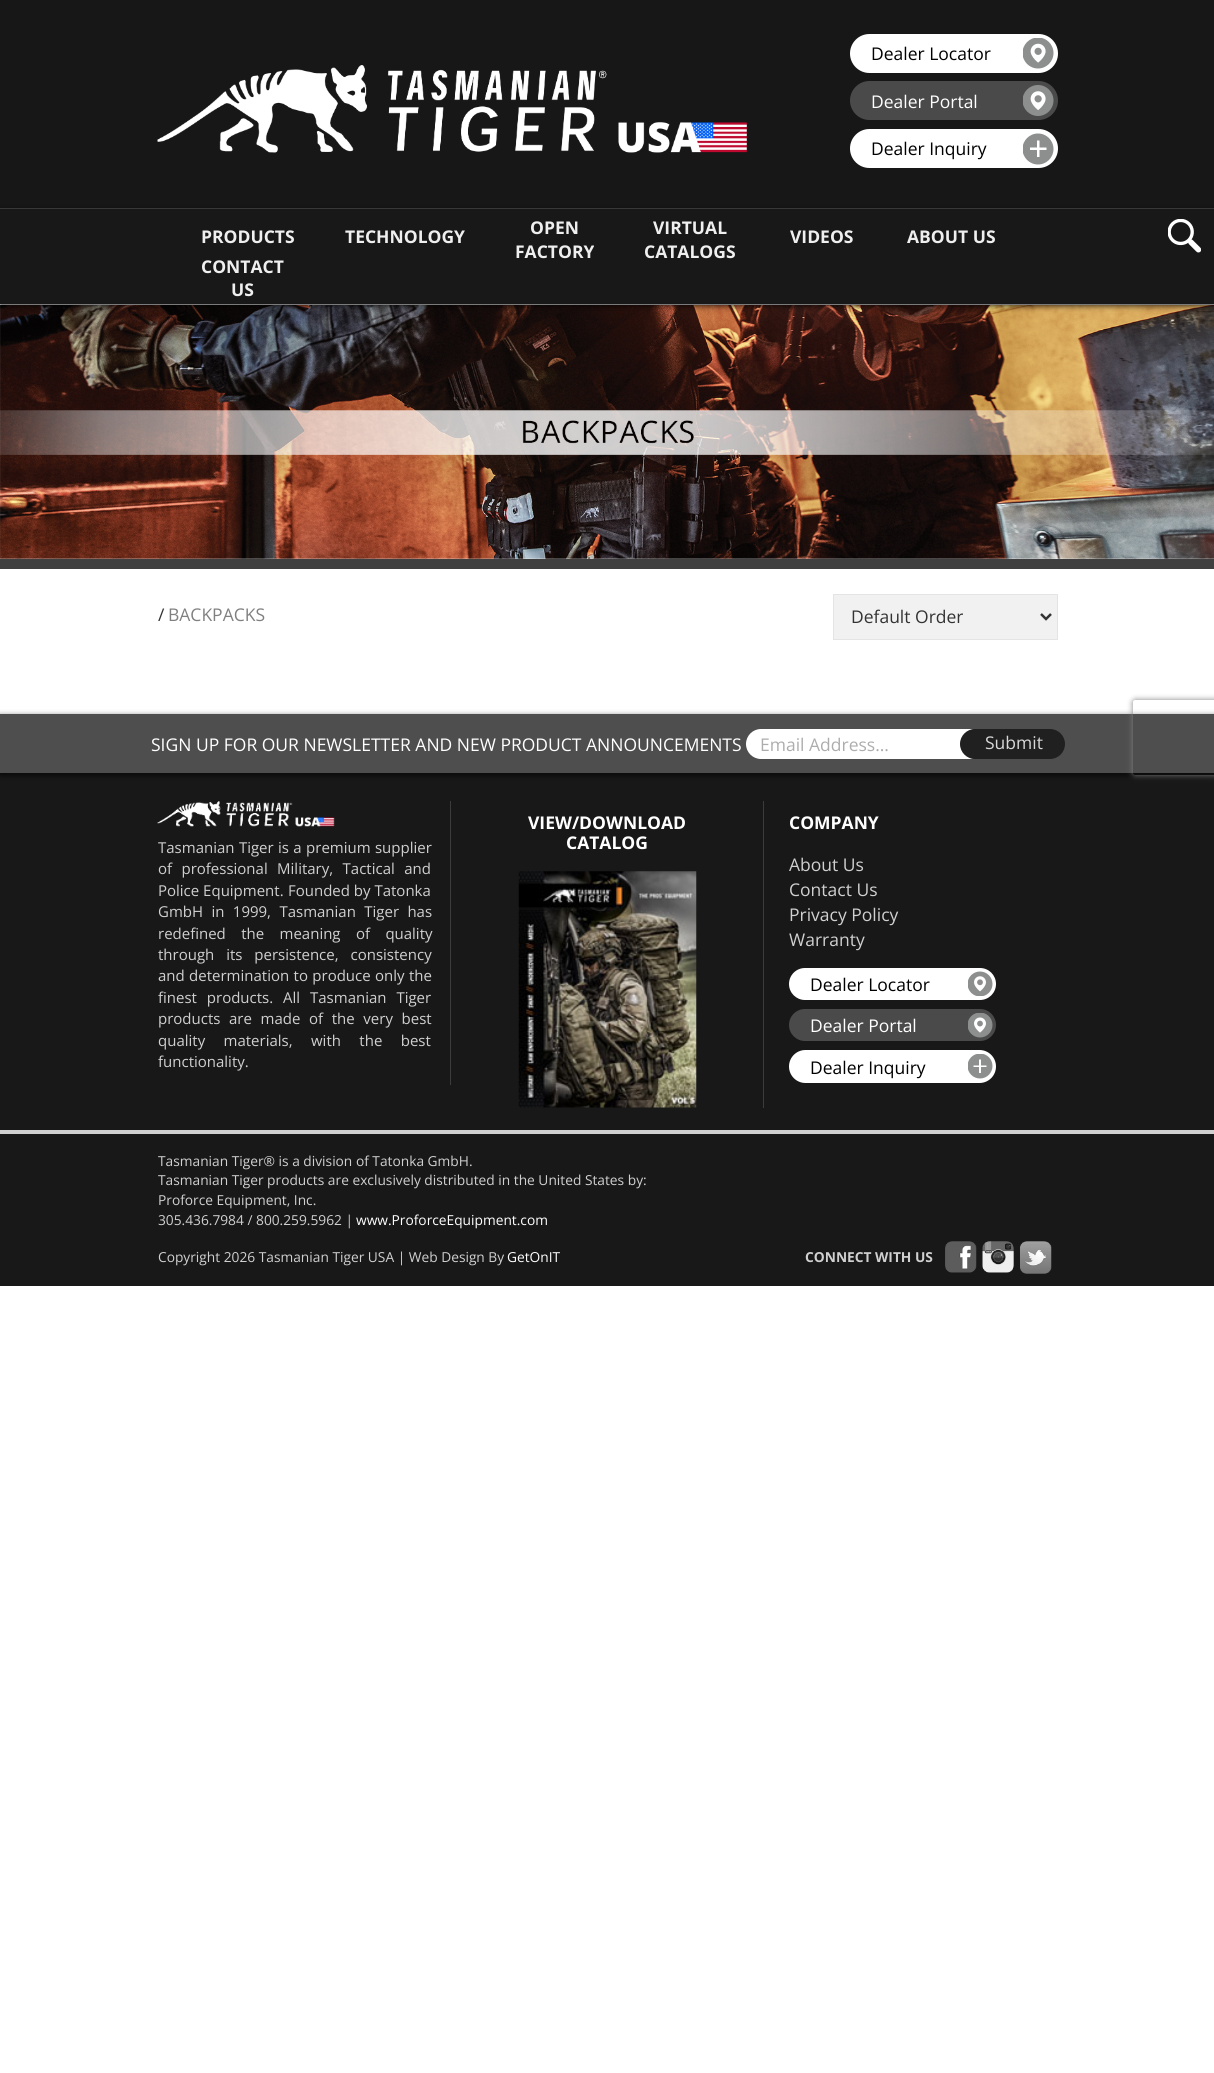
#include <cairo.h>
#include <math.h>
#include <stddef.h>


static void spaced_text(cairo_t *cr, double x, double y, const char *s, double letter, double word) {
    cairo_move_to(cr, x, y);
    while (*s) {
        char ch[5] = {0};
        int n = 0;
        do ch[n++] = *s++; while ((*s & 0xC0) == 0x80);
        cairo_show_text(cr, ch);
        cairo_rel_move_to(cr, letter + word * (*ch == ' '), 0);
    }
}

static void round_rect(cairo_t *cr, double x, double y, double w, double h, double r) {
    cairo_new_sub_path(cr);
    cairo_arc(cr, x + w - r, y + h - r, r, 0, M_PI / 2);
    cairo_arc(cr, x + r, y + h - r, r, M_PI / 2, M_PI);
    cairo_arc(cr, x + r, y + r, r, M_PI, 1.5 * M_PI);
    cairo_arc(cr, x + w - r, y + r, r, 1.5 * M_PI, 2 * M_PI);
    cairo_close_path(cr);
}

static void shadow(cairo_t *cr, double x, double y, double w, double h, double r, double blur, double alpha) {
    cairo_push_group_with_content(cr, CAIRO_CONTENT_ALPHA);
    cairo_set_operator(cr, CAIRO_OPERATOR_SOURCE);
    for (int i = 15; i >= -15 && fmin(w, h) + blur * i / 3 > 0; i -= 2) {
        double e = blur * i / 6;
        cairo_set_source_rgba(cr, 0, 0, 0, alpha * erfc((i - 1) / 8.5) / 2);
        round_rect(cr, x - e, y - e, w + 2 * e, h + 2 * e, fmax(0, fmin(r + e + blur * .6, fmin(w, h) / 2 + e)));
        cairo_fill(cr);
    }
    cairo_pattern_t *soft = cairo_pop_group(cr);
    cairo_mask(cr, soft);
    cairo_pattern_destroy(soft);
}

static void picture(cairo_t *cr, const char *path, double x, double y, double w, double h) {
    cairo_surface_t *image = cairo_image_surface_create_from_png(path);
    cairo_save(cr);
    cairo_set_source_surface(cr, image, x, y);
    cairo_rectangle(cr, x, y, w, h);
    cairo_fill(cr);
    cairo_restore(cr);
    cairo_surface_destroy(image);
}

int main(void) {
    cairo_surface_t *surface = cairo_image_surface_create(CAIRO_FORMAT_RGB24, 1214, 2073);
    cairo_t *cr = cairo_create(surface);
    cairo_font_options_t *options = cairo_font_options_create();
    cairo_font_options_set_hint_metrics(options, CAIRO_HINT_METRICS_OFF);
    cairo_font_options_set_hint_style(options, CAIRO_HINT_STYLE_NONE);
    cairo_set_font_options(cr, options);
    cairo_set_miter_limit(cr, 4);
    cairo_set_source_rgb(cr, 1, 1, 1);
    cairo_paint(cr);
    cairo_set_source_rgb(cr, 0.09, 0.09, 0.09);
    cairo_rectangle(cr, 0, 0, 1214, 208);
    cairo_fill(cr);
    picture(cr, "img1.png", 157, 65, 590, 88);
    cairo_set_source_rgb(cr, 1, 1, 1);
    round_rect(cr, 850, 34, 208, 39, 19.5);
    cairo_fill(cr);
    cairo_select_font_face(cr, "Open Sans", CAIRO_FONT_SLANT_NORMAL, CAIRO_FONT_WEIGHT_NORMAL);
    cairo_set_font_size(cr, 17.5);
    cairo_set_source_rgb(cr, 0, 0, 0);
    cairo_move_to(cr, 871, 60);
    cairo_show_text(cr, "Dealer Locator");
    picture(cr, "img2.png", 1023, 38, 31, 31);
    cairo_set_source_rgb(cr, 0.29, 0.29, 0.29);
    round_rect(cr, 850, 81, 208, 39, 19.5);
    cairo_fill(cr);
    cairo_set_source_rgb(cr, 1, 1, 1);
    cairo_move_to(cr, 871, 108);
    cairo_show_text(cr, "Dealer Portal");
    picture(cr, "img3.png", 1023, 85, 31, 31);
    round_rect(cr, 850, 129, 208, 39, 19.5);
    cairo_fill(cr);
    cairo_set_source_rgb(cr, 0, 0, 0);
    cairo_move_to(cr, 871, 155);
    cairo_show_text(cr, "Dealer Inquiry");
    cairo_save(cr);
    cairo_rectangle(cr, 1023, 133, 31, 32);
    cairo_clip(cr);
    cairo_set_source_rgb(cr, 0.553, 0.557, 0.557);
    cairo_arc(cr, 1038, 149, 15.5, 0, 2 * M_PI);
    cairo_fill(cr);
    cairo_restore(cr);
    cairo_set_source_rgb(cr, 1, 1, 1);
    cairo_new_path(cr);
    cairo_move_to(cr, 1046.5, 150);
    cairo_line_to(cr, 1039.5, 150);
    cairo_line_to(cr, 1039.5, 157);
    cairo_line_to(cr, 1037, 157);
    cairo_line_to(cr, 1037, 150);
    cairo_line_to(cr, 1030, 150);
    cairo_line_to(cr, 1030, 147.5);
    cairo_line_to(cr, 1037, 147.5);
    cairo_line_to(cr, 1037, 140.5);
    cairo_line_to(cr, 1039.5, 140.5);
    cairo_line_to(cr, 1039.5, 147.5);
    cairo_line_to(cr, 1046.5, 147.5);
    cairo_close_path(cr);
    cairo_fill(cr);
    picture(cr, "img5.png", 0, 305, 1214, 254);
    cairo_set_source_rgb(cr, 0, 0, 0);
    shadow(cr, 0, 210, 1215, 96, 0, 3, 0.75);
    cairo_set_source_rgb(cr, 0.094, 0.094, 0.094);
    cairo_rectangle(cr, 0, 209, 1214, 95);
    cairo_fill(cr);
    cairo_set_source_rgb(cr, 0.22, 0.22, 0.22);
    cairo_rectangle(cr, 0, 208, 1214, 1);
    cairo_fill(cr);
    cairo_select_font_face(cr, "Open Sans", CAIRO_FONT_SLANT_NORMAL, CAIRO_FONT_WEIGHT_BOLD);
    cairo_set_source_rgb(cr, 0.937, 0.937, 0.937);
    cairo_move_to(cr, 201, 243);
    cairo_show_text(cr, "PRODUCTS");
    cairo_move_to(cr, 345, 243);
    cairo_show_text(cr, "TECHNOLOGY");
    cairo_move_to(cr, 530, 234);
    cairo_show_text(cr, "OPEN");
    cairo_move_to(cr, 515, 258);
    cairo_show_text(cr, "FACTORY");
    cairo_move_to(cr, 653, 234);
    cairo_show_text(cr, "VIRTUAL");
    cairo_move_to(cr, 644, 258);
    cairo_show_text(cr, "CATALOGS");
    cairo_move_to(cr, 790, 243);
    cairo_show_text(cr, "VIDEOS");
    cairo_move_to(cr, 907, 243);
    cairo_show_text(cr, "ABOUT US");
    cairo_move_to(cr, 201, 273);
    cairo_show_text(cr, "CONTACT");
    cairo_move_to(cr, 231, 296);
    cairo_show_text(cr, "US");
    picture(cr, "img4.png", 1168, 219, 33, 34);
    cairo_set_source_rgb(cr, 0.251, 0.251, 0.251);
    cairo_rectangle(cr, 0, 559, 1214, 10);
    cairo_fill(cr);
    cairo_select_font_face(cr, "Open Sans", CAIRO_FONT_SLANT_NORMAL, CAIRO_FONT_WEIGHT_NORMAL);
    cairo_set_source_rgb(cr, 0.2, 0.2, 0.2);
    cairo_move_to(cr, 158, 621);
    cairo_show_text(cr, "/");
    cairo_set_source_rgb(cr, 0.502, 0.502, 0.502);
    cairo_move_to(cr, 168, 621);
    cairo_show_text(cr, "BACKPACKS");
    cairo_set_source_rgb(cr, 0.945, 0.945, 0.945);
    cairo_rectangle(cr, 833.5, 594.5, 224, 45);
    cairo_fill_preserve(cr);
    cairo_set_source_rgb(cr, 0.894, 0.894, 0.894);
    cairo_set_line_width(cr, 1);
    cairo_stroke(cr);
    cairo_new_path(cr);
    cairo_move_to(cr, 1041, 614);
    cairo_line_to(cr, 1046, 619);
    cairo_line_to(cr, 1051, 614);
    cairo_set_source_rgb(cr, 0.2, 0.2, 0.2);
    cairo_set_line_width(cr, 2.5);
    cairo_stroke(cr);
    cairo_move_to(cr, 851, 623);
    cairo_show_text(cr, "Default Order");
    cairo_set_source_rgb(cr, 0.094, 0.094, 0.094);
    cairo_rectangle(cr, 0, 773, 1214, 513);
    cairo_fill(cr);
    cairo_set_source_rgb(cr, 0, 0, 0);
    shadow(cr, 0, 716, 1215, 59, 0, 3, 0.75);
    cairo_set_source_rgb(cr, 0.306, 0.306, 0.306);
    cairo_rectangle(cr, 0, 714, 1214, 59);
    cairo_fill(cr);
    cairo_set_source_rgb(cr, 1, 1, 1);
    cairo_move_to(cr, 151, 751);
    cairo_show_text(cr, "SIGN UP FOR OUR NEWSLETTER AND NEW PRODUCT ANNOUNCEMENTS");
    round_rect(cr, 746, 729, 238, 30, 15);
    cairo_fill(cr);
    cairo_set_source_rgb(cr, 0.678, 0.678, 0.678);
    cairo_move_to(cr, 760, 751);
    cairo_show_text(cr, "Email Address...");
    cairo_set_source_rgb(cr, 0.125, 0.125, 0.125);
    round_rect(cr, 960, 729, 105, 30, 15);
    cairo_fill(cr);
    cairo_set_source_rgb(cr, 0.847, 0.847, 0.847);
    cairo_move_to(cr, 985, 749);
    cairo_show_text(cr, "Submit");
    cairo_save(cr);
    cairo_set_fill_rule(cr, CAIRO_FILL_RULE_EVEN_ODD);
    cairo_new_path(cr);
    cairo_move_to(cr, 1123, 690);
    cairo_line_to(cr, 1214, 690);
    cairo_line_to(cr, 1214, 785);
    cairo_line_to(cr, 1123, 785);
    cairo_close_path(cr);
    cairo_move_to(cr, 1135.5, 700);
    cairo_line_to(cr, 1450.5, 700);
    cairo_curve_to(cr, 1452, 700, 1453, 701, 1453, 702.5);
    cairo_line_to(cr, 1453, 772.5);
    cairo_curve_to(cr, 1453, 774, 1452, 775, 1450.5, 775);
    cairo_line_to(cr, 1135.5, 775);
    cairo_curve_to(cr, 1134, 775, 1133, 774, 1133, 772.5);
    cairo_line_to(cr, 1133, 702.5);
    cairo_curve_to(cr, 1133, 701, 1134, 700, 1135.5, 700);
    cairo_close_path(cr);
    cairo_clip(cr);
    cairo_set_source_rgb(cr, 0.502, 0.502, 0.502);
    shadow(cr, 1133, 700, 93, 75, 2.5, 3, 1);
    cairo_restore(cr);
    cairo_set_source_rgb(cr, 0.235, 0.235, 0.235);
    cairo_rectangle(cr, 450, 801, 1, 284);
    cairo_fill(cr);
    picture(cr, "img6.png", 157, 801, 178, 26);
    cairo_set_font_size(cr, 15);
    cairo_set_source_rgb(cr, 0.816, 0.816, 0.816);
    spaced_text(cr, 158, 853, "Tasmanian Tiger is a premium supplier", 0, 0.5);
    spaced_text(cr, 158, 874, "of professional Military, Tactical and", 0, 5.5);
    cairo_move_to(cr, 158, 896);
    cairo_show_text(cr, "Police Equipment.");
    cairo_move_to(cr, 288, 896);
    cairo_show_text(cr, "Founded by Tatonka");
    spaced_text(cr, 158, 917, "GmbH in 1999, Tasmanian Tiger has", 0, 4.5);
    spaced_text(cr, 158, 939, "redefined the meaning of quality", 0, 11.5);
    spaced_text(cr, 158, 960, "through its persistence, consistency", 0, 8);
    spaced_text(cr, 158, 981, "and determination to produce only the", 0, 0.5);
    spaced_text(cr, 158, 1003, "finest products. All Tasmanian Tiger", 0, 6);
    spaced_text(cr, 158, 1024, "products are made of the very best", 0, 4.75);
    spaced_text(cr, 158, 1046, "quality materials, with the best", 0, 14.5);
    cairo_move_to(cr, 158, 1067);
    cairo_show_text(cr, "functionality.");
    cairo_set_source_rgb(cr, 0.235, 0.235, 0.235);
    cairo_rectangle(cr, 763, 801, 1, 307);
    cairo_fill(cr);
    cairo_select_font_face(cr, "Open Sans", CAIRO_FONT_SLANT_NORMAL, CAIRO_FONT_WEIGHT_BOLD);
    cairo_set_font_size(cr, 17.5);
    cairo_set_source_rgb(cr, 1, 1, 1);
    cairo_move_to(cr, 528, 829);
    cairo_show_text(cr, "VIEW/DOWNLOAD");
    cairo_move_to(cr, 566, 849);
    cairo_show_text(cr, "CATALOG");
    picture(cr, "img7.png", 518, 871, 179, 237);
    cairo_move_to(cr, 789, 829);
    cairo_show_text(cr, "COMPANY");
    cairo_select_font_face(cr, "Open Sans", CAIRO_FONT_SLANT_NORMAL, CAIRO_FONT_WEIGHT_NORMAL);
    cairo_set_source_rgb(cr, 0.816, 0.816, 0.816);
    cairo_move_to(cr, 789, 871);
    cairo_show_text(cr, "About Us");
    cairo_move_to(cr, 789, 896);
    cairo_show_text(cr, "Contact Us");
    cairo_move_to(cr, 789, 921);
    cairo_show_text(cr, "Privacy Policy");
    cairo_move_to(cr, 789, 946);
    cairo_show_text(cr, "Warranty");
    cairo_set_source_rgb(cr, 1, 1, 1);
    round_rect(cr, 789, 968, 207, 32, 16);
    cairo_fill(cr);
    cairo_set_source_rgb(cr, 0, 0, 0);
    cairo_move_to(cr, 810, 991);
    cairo_show_text(cr, "Dealer Locator");
    picture(cr, "img8.png", 968, 971, 25, 25);
    cairo_set_source_rgb(cr, 0.29, 0.29, 0.29);
    round_rect(cr, 789, 1009, 207, 32, 16);
    cairo_fill(cr);
    cairo_set_source_rgb(cr, 1, 1, 1);
    cairo_move_to(cr, 810, 1032);
    cairo_show_text(cr, "Dealer Portal");
    picture(cr, "img9.png", 968, 1013, 25, 25);
    round_rect(cr, 789, 1050, 207, 33, 16.5);
    cairo_fill(cr);
    cairo_set_source_rgb(cr, 0, 0, 0);
    cairo_move_to(cr, 810, 1074);
    cairo_show_text(cr, "Dealer Inquiry");
    cairo_save(cr);
    cairo_rectangle(cr, 968, 1054, 25, 25);
    cairo_clip(cr);
    cairo_set_source_rgb(cr, 0.553, 0.557, 0.557);
    cairo_arc(cr, 980, 1066, 12.5, 0, 2 * M_PI);
    cairo_fill(cr);
    cairo_restore(cr);
    cairo_set_source_rgb(cr, 1, 1, 1);
    cairo_new_path(cr);
    cairo_move_to(cr, 986.5, 1067);
    cairo_line_to(cr, 981, 1067);
    cairo_line_to(cr, 981, 1073);
    cairo_line_to(cr, 979, 1073);
    cairo_line_to(cr, 979, 1067);
    cairo_line_to(cr, 973.5, 1067);
    cairo_line_to(cr, 973.5, 1065.5);
    cairo_line_to(cr, 979, 1065.5);
    cairo_line_to(cr, 979, 1059.5);
    cairo_line_to(cr, 981, 1059.5);
    cairo_line_to(cr, 981, 1065.5);
    cairo_line_to(cr, 986.5, 1065.5);
    cairo_close_path(cr);
    cairo_fill(cr);
    cairo_set_source_rgb(cr, 0.816, 0.816, 0.816);
    cairo_rectangle(cr, 0, 1130, 1214, 4);
    cairo_fill(cr);
    cairo_set_font_size(cr, 13.75);
    cairo_move_to(cr, 158, 1166);
    cairo_show_text(cr, "Tasmanian Tiger® is a division of Tatonka GmbH.");
    cairo_move_to(cr, 158, 1185);
    cairo_show_text(cr, "Tasmanian Tiger products are exclusively distributed in the United States by:");
    cairo_move_to(cr, 158, 1205);
    cairo_show_text(cr, "Proforce Equipment, Inc.");
    cairo_move_to(cr, 158, 1225);
    cairo_show_text(cr, "305.436.7984 / 800.259.5962 |");
    cairo_set_source_rgb(cr, 1, 1, 1);
    cairo_move_to(cr, 356, 1225);
    cairo_show_text(cr, "www.ProforceEquipment.com");
    cairo_set_source_rgb(cr, 0.816, 0.816, 0.816);
    cairo_move_to(cr, 158, 1262);
    cairo_show_text(cr, "Copyright 2026 Tasmanian Tiger USA | Web Design By");
    cairo_set_source_rgb(cr, 1, 1, 1);
    cairo_move_to(cr, 507, 1262);
    cairo_show_text(cr, "GetOnIT");
    cairo_select_font_face(cr, "Open Sans", CAIRO_FONT_SLANT_NORMAL, CAIRO_FONT_WEIGHT_BOLD);
    cairo_set_source_rgb(cr, 0.816, 0.816, 0.816);
    cairo_move_to(cr, 805, 1262);
    cairo_show_text(cr, "CONNECT WITH US");
    picture(cr, "img10.png", 945, 1241, 32, 32);
    picture(cr, "img11.png", 982, 1241, 32, 32);
    picture(cr, "img12.png", 1020, 1241, 32, 33);
    cairo_surface_write_to_png(surface, "page.png");
    cairo_font_options_destroy(options);
    cairo_destroy(cr);
    cairo_surface_destroy(surface);
    return 0;
}
